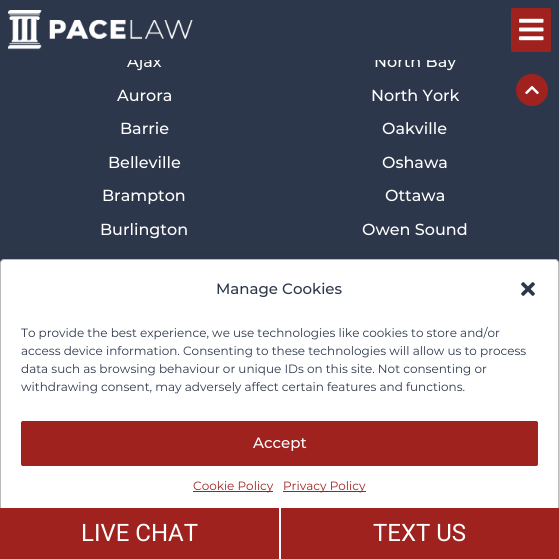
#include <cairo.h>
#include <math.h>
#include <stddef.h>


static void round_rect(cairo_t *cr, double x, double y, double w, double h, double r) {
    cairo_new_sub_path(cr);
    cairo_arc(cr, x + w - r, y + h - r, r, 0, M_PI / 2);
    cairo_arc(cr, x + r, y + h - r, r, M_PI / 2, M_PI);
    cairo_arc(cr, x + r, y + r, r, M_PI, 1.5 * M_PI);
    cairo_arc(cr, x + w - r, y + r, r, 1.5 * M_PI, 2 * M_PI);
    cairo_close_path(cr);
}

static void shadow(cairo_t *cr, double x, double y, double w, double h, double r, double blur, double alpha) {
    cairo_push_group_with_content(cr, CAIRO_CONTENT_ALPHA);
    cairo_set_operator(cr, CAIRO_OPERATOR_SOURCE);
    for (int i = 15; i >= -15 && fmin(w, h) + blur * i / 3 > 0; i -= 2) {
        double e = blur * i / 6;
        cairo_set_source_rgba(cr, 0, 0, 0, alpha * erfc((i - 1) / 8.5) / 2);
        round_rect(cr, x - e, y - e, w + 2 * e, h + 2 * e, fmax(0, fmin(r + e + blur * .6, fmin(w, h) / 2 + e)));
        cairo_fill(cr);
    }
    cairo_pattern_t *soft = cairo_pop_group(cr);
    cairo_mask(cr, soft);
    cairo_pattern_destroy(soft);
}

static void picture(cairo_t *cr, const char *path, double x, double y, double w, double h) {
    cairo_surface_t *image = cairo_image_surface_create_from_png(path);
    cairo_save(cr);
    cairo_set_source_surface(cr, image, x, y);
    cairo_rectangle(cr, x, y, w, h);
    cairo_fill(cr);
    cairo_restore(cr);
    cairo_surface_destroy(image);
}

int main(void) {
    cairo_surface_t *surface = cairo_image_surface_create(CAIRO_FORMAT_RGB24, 559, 559);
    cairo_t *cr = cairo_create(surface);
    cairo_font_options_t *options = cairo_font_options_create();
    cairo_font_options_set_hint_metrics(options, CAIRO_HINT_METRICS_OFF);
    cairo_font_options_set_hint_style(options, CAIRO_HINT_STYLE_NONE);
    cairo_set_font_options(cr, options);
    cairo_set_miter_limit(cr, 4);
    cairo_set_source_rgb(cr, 0.176, 0.216, 0.294);
    cairo_paint(cr);
    cairo_select_font_face(cr, "Montserrat Medium", CAIRO_FONT_SLANT_NORMAL, CAIRO_FONT_WEIGHT_NORMAL);
    cairo_set_font_size(cr, 16);
    cairo_set_source_rgb(cr, 1, 1, 1);
    cairo_move_to(cr, 127, 67);
    cairo_show_text(cr, "Ajax");
    cairo_move_to(cr, 374, 67);
    cairo_show_text(cr, "North Bay");
    cairo_set_source_rgb(cr, 0.176, 0.216, 0.294);
    cairo_rectangle(cr, 130, 54, 326, 6);
    cairo_fill(cr);
    picture(cr, "img1.png", 8, 10, 185, 40);
    cairo_set_source_rgb(cr, 0.624, 0.133, 0.122);
    round_rect(cr, 511, 8, 40, 44, 2);
    cairo_fill(cr);
    picture(cr, "img2.png", 519, 18, 25, 23);
    cairo_set_source_rgb(cr, 1, 1, 1);
    cairo_move_to(cr, 117, 101);
    cairo_show_text(cr, "Aurora");
    cairo_move_to(cr, 120, 134);
    cairo_show_text(cr, "Barrie");
    cairo_move_to(cr, 108, 168);
    cairo_show_text(cr, "Belleville");
    cairo_move_to(cr, 102, 201);
    cairo_show_text(cr, "Brampton");
    cairo_move_to(cr, 100, 235);
    cairo_show_text(cr, "Burlington");
    cairo_move_to(cr, 371, 101);
    cairo_show_text(cr, "North York");
    cairo_move_to(cr, 382, 134);
    cairo_show_text(cr, "Oakville");
    cairo_move_to(cr, 382, 168);
    cairo_show_text(cr, "Oshawa");
    cairo_move_to(cr, 385, 201);
    cairo_show_text(cr, "Ottawa");
    cairo_move_to(cr, 362, 235);
    cairo_show_text(cr, "Owen Sound");
    cairo_set_source_rgb(cr, 0.624, 0.133, 0.122);
    cairo_new_path(cr);
    cairo_arc(cr, 532, 90, 16, 0, 2 * M_PI);
    cairo_fill(cr);
    picture(cr, "img3.png", 525, 85, 14, 10);
    cairo_set_source_rgb(cr, 0, 0, 0);
    shadow(cr, 0, 269, 559, 252, 4, 10, 0.19);
    cairo_set_source_rgb(cr, 1, 1, 1);
    round_rect(cr, 0.5, 259.5, 558, 251, 3.5);
    cairo_fill_preserve(cr);
    cairo_set_source_rgb(cr, 0.729, 0.729, 0.729);
    cairo_set_line_width(cr, 1);
    cairo_stroke(cr);
    cairo_set_font_size(cr, 15);
    cairo_set_source_rgb(cr, 0.176, 0.216, 0.294);
    cairo_move_to(cr, 216, 294);
    cairo_show_text(cr, "Manage Cookies");
    picture(cr, "img4.png", 521, 282, 14, 14);
    cairo_select_font_face(cr, "Montserrat", CAIRO_FONT_SLANT_NORMAL, CAIRO_FONT_WEIGHT_NORMAL);
    cairo_set_font_size(cr, 12);
    cairo_move_to(cr, 21, 337);
    cairo_show_text(cr, "To provide the best experience, we use technologies like cookies to store and/or");
    cairo_move_to(cr, 21, 355);
    cairo_show_text(cr, "access device information. Consenting to these technologies will allow us to process");
    cairo_move_to(cr, 21, 373);
    cairo_show_text(cr, "data such as browsing behaviour or unique IDs on this site. Not consenting or");
    cairo_move_to(cr, 21, 391);
    cairo_show_text(cr, "withdrawing consent, may adversely affect certain features and functions.");
    cairo_set_source_rgb(cr, 0.624, 0.133, 0.122);
    round_rect(cr, 21.5, 421.5, 516, 44, 1.5);
    cairo_fill_preserve(cr);
    cairo_stroke(cr);
    cairo_select_font_face(cr, "Montserrat Medium", CAIRO_FONT_SLANT_NORMAL, CAIRO_FONT_WEIGHT_NORMAL);
    cairo_set_font_size(cr, 15);
    cairo_set_source_rgb(cr, 1, 1, 1);
    cairo_move_to(cr, 253, 448);
    cairo_show_text(cr, "Accept");
    cairo_set_source_rgb(cr, 0.624, 0.133, 0.122);
    cairo_rectangle(cr, 193, 491, 80, 1);
    cairo_fill(cr);
    cairo_select_font_face(cr, "Montserrat", CAIRO_FONT_SLANT_NORMAL, CAIRO_FONT_WEIGHT_NORMAL);
    cairo_set_font_size(cr, 12);
    cairo_move_to(cr, 193, 490);
    cairo_show_text(cr, "Cookie Policy");
    cairo_rectangle(cr, 283, 491, 83, 1);
    cairo_fill(cr);
    cairo_move_to(cr, 283, 490);
    cairo_show_text(cr, "Privacy Policy");
    cairo_rectangle(cr, 0, 508, 279, 51);
    cairo_fill(cr);
    cairo_set_source_rgb(cr, 1, 1, 1);
    cairo_rectangle(cr, 279, 508, 2, 51);
    cairo_fill(cr);
    cairo_select_font_face(cr, "Roboto", CAIRO_FONT_SLANT_NORMAL, CAIRO_FONT_WEIGHT_NORMAL);
    cairo_set_font_size(cr, 24);
    cairo_move_to(cr, 81, 541);
    cairo_show_text(cr, "LIVE CHAT");
    cairo_set_source_rgb(cr, 0.624, 0.133, 0.122);
    cairo_rectangle(cr, 281, 508, 278, 51);
    cairo_fill(cr);
    cairo_set_source_rgb(cr, 1, 1, 1);
    cairo_move_to(cr, 373, 541);
    cairo_show_text(cr, "TEXT US");
    cairo_surface_write_to_png(surface, "page.png");
    cairo_font_options_destroy(options);
    cairo_destroy(cr);
    cairo_surface_destroy(surface);
    return 0;
}
